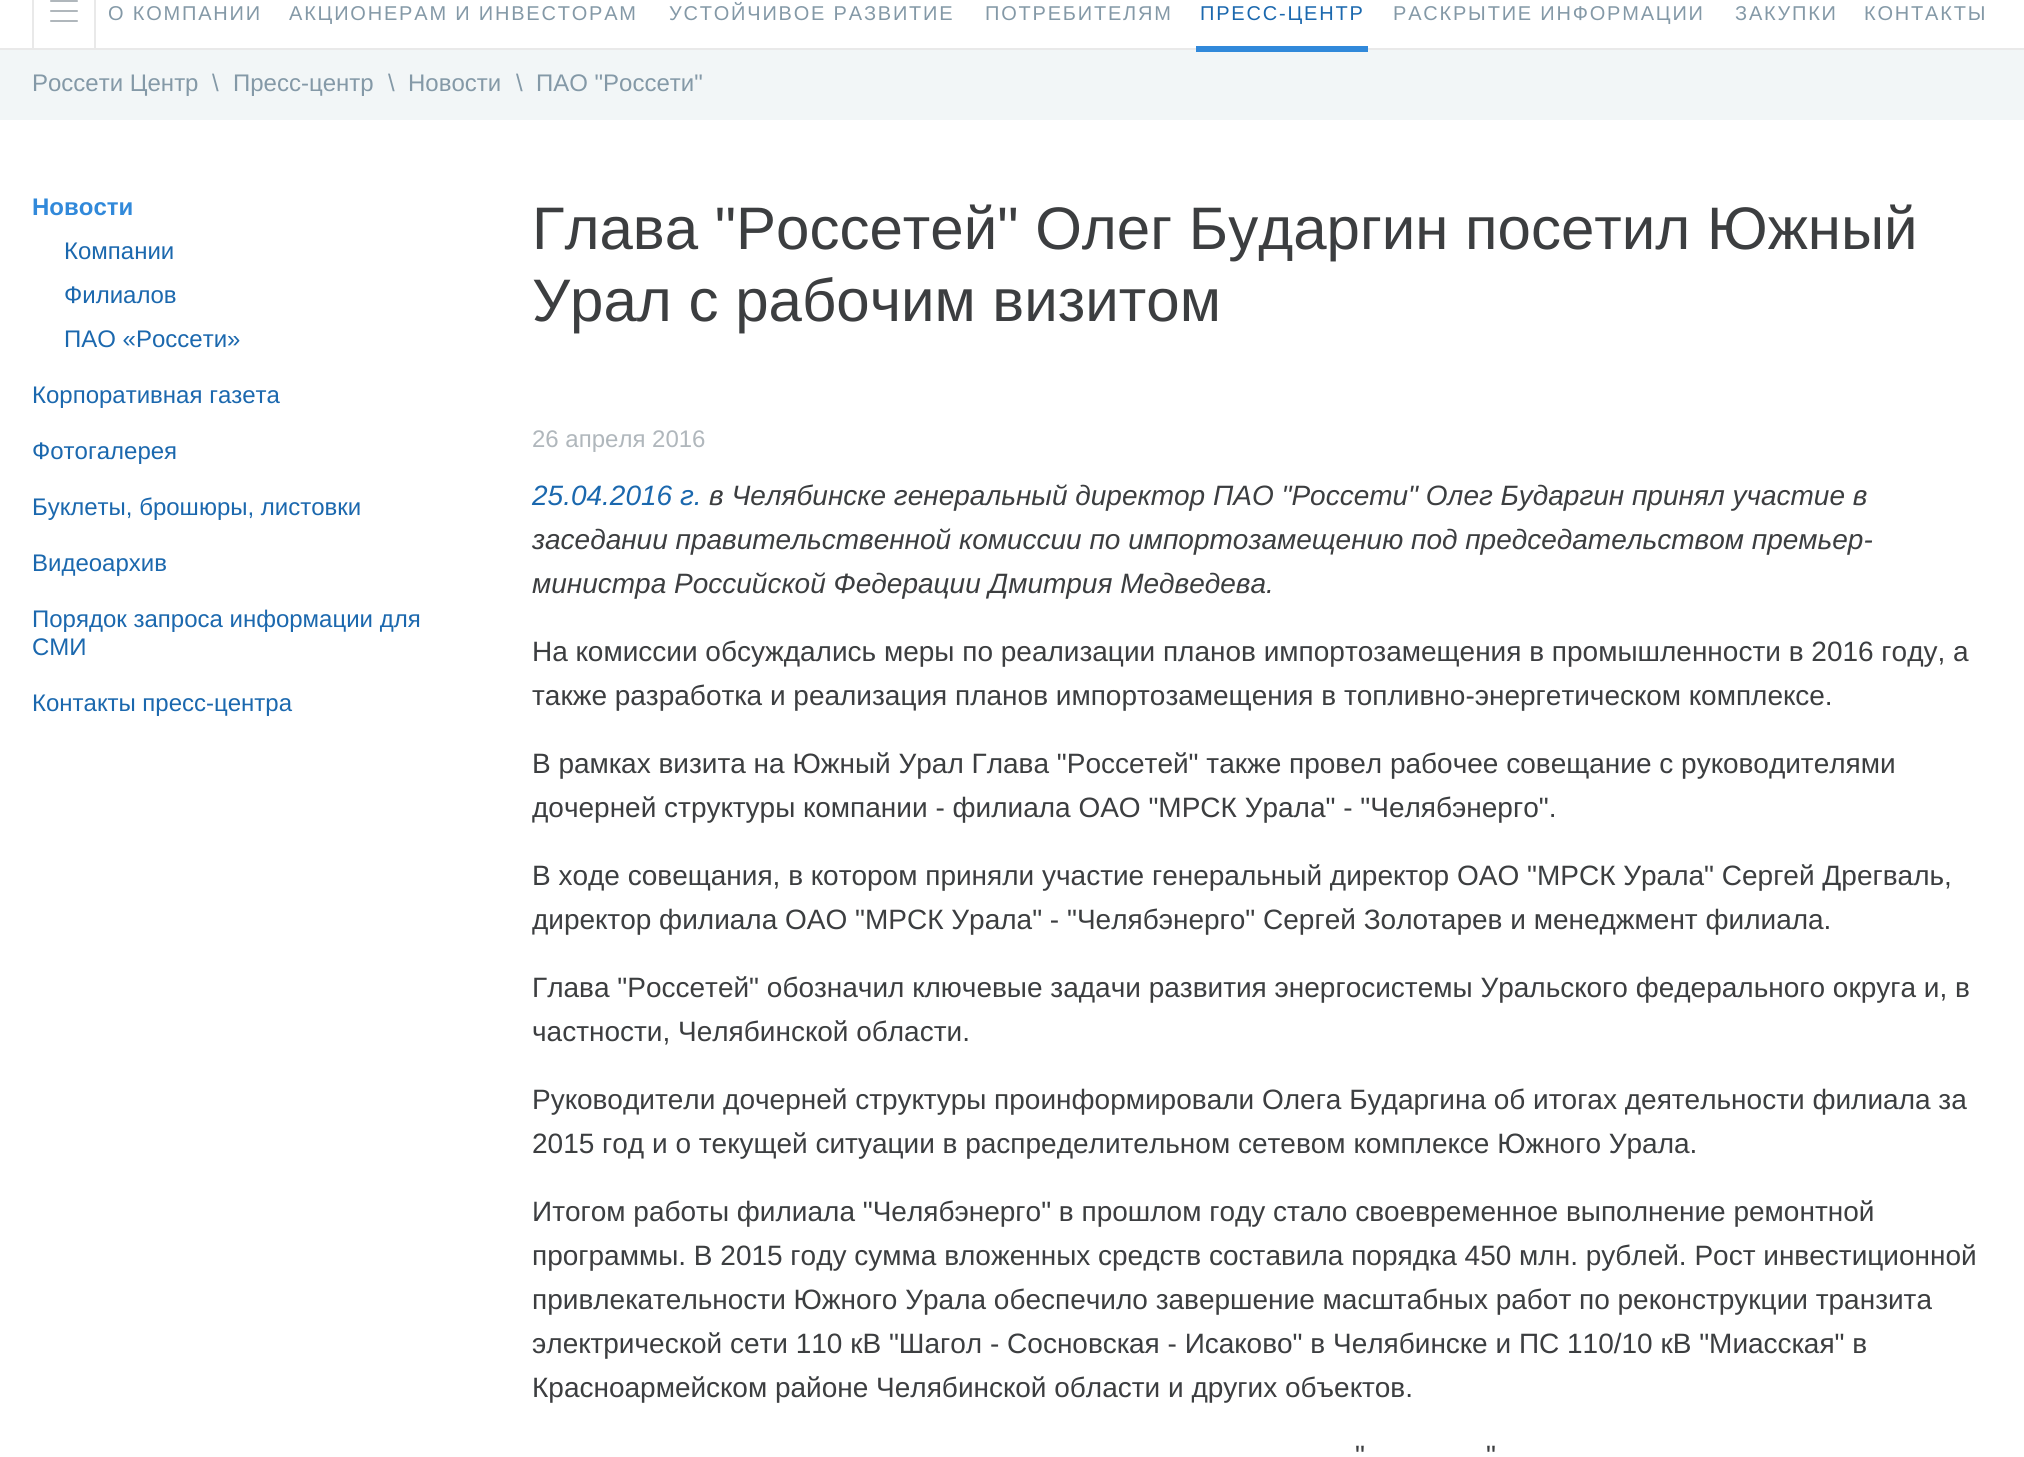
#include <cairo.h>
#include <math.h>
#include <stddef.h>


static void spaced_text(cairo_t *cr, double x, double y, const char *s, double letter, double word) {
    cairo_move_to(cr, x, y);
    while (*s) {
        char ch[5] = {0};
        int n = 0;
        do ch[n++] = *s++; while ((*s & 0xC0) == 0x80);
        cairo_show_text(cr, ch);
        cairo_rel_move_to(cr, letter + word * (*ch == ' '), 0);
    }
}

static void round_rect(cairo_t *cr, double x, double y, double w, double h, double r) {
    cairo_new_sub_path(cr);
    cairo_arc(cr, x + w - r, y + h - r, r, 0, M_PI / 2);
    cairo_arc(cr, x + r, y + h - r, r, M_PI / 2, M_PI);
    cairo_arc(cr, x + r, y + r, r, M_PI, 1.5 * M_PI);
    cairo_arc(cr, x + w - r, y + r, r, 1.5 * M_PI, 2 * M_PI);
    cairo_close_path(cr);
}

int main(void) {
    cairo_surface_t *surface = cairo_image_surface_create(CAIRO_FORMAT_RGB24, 2024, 1457);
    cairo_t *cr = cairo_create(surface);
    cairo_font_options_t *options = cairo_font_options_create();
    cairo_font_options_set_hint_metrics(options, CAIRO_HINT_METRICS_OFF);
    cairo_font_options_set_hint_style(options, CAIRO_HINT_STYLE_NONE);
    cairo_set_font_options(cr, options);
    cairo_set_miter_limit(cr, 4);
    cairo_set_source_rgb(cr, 1, 1, 1);
    cairo_paint(cr);
    cairo_set_source_rgb(cr, 0.914, 0.914, 0.914);
    cairo_rectangle(cr, 0, 48, 2024, 2);
    cairo_fill(cr);
    cairo_new_path(cr);
    cairo_move_to(cr, 96, -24);
    cairo_line_to(cr, 96, 48);
    cairo_line_to(cr, 94, 48);
    cairo_line_to(cr, 94, -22);
    cairo_close_path(cr);
    cairo_fill(cr);
    cairo_new_path(cr);
    cairo_move_to(cr, 32, 48);
    cairo_line_to(cr, 32, -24);
    cairo_line_to(cr, 34, -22);
    cairo_line_to(cr, 34, 48);
    cairo_close_path(cr);
    cairo_fill(cr);
    cairo_set_source_rgb(cr, 0.69, 0.718, 0.737);
    round_rect(cr, 50, 10, 28, 2, 1);
    cairo_fill(cr);
    round_rect(cr, 50, 0, 28, 2, 1);
    cairo_fill(cr);
    round_rect(cr, 50, 20, 28, 2, 1);
    cairo_fill(cr);
    cairo_select_font_face(cr, "Liberation Sans", CAIRO_FONT_SLANT_NORMAL, CAIRO_FONT_WEIGHT_NORMAL);
    cairo_set_font_size(cr, 20);
    cairo_set_source_rgb(cr, 0.518, 0.6, 0.655);
    spaced_text(cr, 108, 20, "О КОМПАНИИ", 1.8, 0);
    spaced_text(cr, 289, 20, "АКЦИОНЕРАМ И ИНВЕСТОРАМ", 1.8, 0);
    spaced_text(cr, 669, 20, "УСТОЙЧИВОЕ РАЗВИТИЕ", 1.8, 0);
    spaced_text(cr, 985, 20, "ПОТРЕБИТЕЛЯМ", 1.8, 0);
    cairo_set_source_rgb(cr, 0.106, 0.408, 0.682);
    spaced_text(cr, 1200, 20, "ПРЕСС-ЦЕНТР", 1.8, 0);
    cairo_set_source_rgb(cr, 0.949, 0.961, 0.965);
    cairo_rectangle(cr, 0, 50, 2024, 70);
    cairo_fill(cr);
    cairo_set_source_rgb(cr, 0.192, 0.537, 0.855);
    cairo_rectangle(cr, 1196, 46, 172, 6);
    cairo_fill(cr);
    cairo_set_source_rgb(cr, 0.518, 0.6, 0.655);
    spaced_text(cr, 1393, 20, "РАСКРЫТИЕ ИНФОРМАЦИИ", 1.8, 0);
    spaced_text(cr, 1735, 20, "ЗАКУПКИ", 1.8, 0);
    spaced_text(cr, 1864, 20, "КОНТАКТЫ", 1.8, 0);
    cairo_set_font_size(cr, 24);
    cairo_move_to(cr, 32, 91);
    cairo_show_text(cr, "Россети Центр");
    cairo_move_to(cr, 212, 91);
    cairo_show_text(cr, "\\");
    cairo_move_to(cr, 233, 91);
    cairo_show_text(cr, "Пресс-центр");
    cairo_move_to(cr, 388, 91);
    cairo_show_text(cr, "\\");
    cairo_move_to(cr, 408, 91);
    cairo_show_text(cr, "Новости");
    cairo_move_to(cr, 516, 91);
    cairo_show_text(cr, "\\");
    cairo_move_to(cr, 536, 91);
    cairo_show_text(cr, "ПАО \"Россети\"");
    cairo_select_font_face(cr, "Liberation Sans", CAIRO_FONT_SLANT_NORMAL, CAIRO_FONT_WEIGHT_BOLD);
    cairo_set_source_rgb(cr, 0.192, 0.537, 0.855);
    cairo_move_to(cr, 32, 215);
    cairo_show_text(cr, "Новости");
    cairo_select_font_face(cr, "Liberation Sans", CAIRO_FONT_SLANT_NORMAL, CAIRO_FONT_WEIGHT_NORMAL);
    cairo_set_source_rgb(cr, 0.106, 0.408, 0.682);
    cairo_move_to(cr, 64, 259);
    cairo_show_text(cr, "Компании");
    cairo_move_to(cr, 64, 303);
    cairo_show_text(cr, "Филиалов");
    cairo_move_to(cr, 64, 347);
    cairo_show_text(cr, "ПАО «Россети»");
    cairo_move_to(cr, 32, 403);
    cairo_show_text(cr, "Корпоративная газета");
    cairo_move_to(cr, 32, 459);
    cairo_show_text(cr, "Фотогалерея");
    cairo_move_to(cr, 32, 515);
    cairo_show_text(cr, "Буклеты, брошюры, листовки");
    cairo_move_to(cr, 32, 571);
    cairo_show_text(cr, "Видеоархив");
    cairo_move_to(cr, 32, 627);
    cairo_show_text(cr, "Порядок запроса информации для");
    cairo_move_to(cr, 32, 655);
    cairo_show_text(cr, "СМИ");
    cairo_move_to(cr, 32, 711);
    cairo_show_text(cr, "Контакты пресс-центра");
    cairo_set_font_size(cr, 60);
    cairo_set_source_rgb(cr, 0.235, 0.243, 0.251);
    cairo_move_to(cr, 532, 249);
    cairo_show_text(cr, "Глава \"Россетей\" Олег Бударгин посетил Южный");
    cairo_move_to(cr, 532, 321);
    cairo_show_text(cr, "Урал с рабочим визитом");
    cairo_set_font_size(cr, 24);
    cairo_set_source_rgb(cr, 0.69, 0.718, 0.737);
    cairo_move_to(cr, 532, 447);
    cairo_show_text(cr, "26 апреля 2016");
    cairo_select_font_face(cr, "Liberation Sans", CAIRO_FONT_SLANT_ITALIC, CAIRO_FONT_WEIGHT_NORMAL);
    cairo_set_font_size(cr, 28);
    cairo_set_source_rgb(cr, 0.106, 0.408, 0.682);
    cairo_move_to(cr, 532, 505);
    cairo_show_text(cr, "25.04.2016 г.");
    cairo_set_source_rgb(cr, 0.235, 0.243, 0.251);
    cairo_move_to(cr, 709, 505);
    cairo_show_text(cr, "в Челябинске генеральный директор ПАО \"Россети\" Олег Бударгин принял участие в");
    cairo_move_to(cr, 532, 549);
    cairo_show_text(cr, "заседании правительственной комиссии по импортозамещению под председательством премьер-");
    cairo_move_to(cr, 532, 593);
    cairo_show_text(cr, "министра Российской Федерации Дмитрия Медведева.");
    cairo_select_font_face(cr, "Liberation Sans", CAIRO_FONT_SLANT_NORMAL, CAIRO_FONT_WEIGHT_NORMAL);
    cairo_move_to(cr, 532, 661);
    cairo_show_text(cr, "На комиссии обсуждались меры по реализации планов импортозамещения в промышленности в 2016 году, а");
    cairo_move_to(cr, 532, 705);
    cairo_show_text(cr, "также разработка и реализация планов импортозамещения в топливно-энергетическом комплексе.");
    cairo_move_to(cr, 532, 773);
    cairo_show_text(cr, "В рамках визита на Южный Урал Глава \"Россетей\" также провел рабочее совещание с руководителями");
    cairo_move_to(cr, 532, 817);
    cairo_show_text(cr, "дочерней структуры компании - филиала ОАО \"МРСК Урала\" - \"Челябэнерго\".");
    cairo_move_to(cr, 532, 885);
    cairo_show_text(cr, "В ходе совещания, в котором приняли участие генеральный директор ОАО \"МРСК Урала\" Сергей Дрегваль,");
    cairo_move_to(cr, 532, 929);
    cairo_show_text(cr, "директор филиала ОАО \"МРСК Урала\" - \"Челябэнерго\" Сергей Золотарев и менеджмент филиала.");
    cairo_move_to(cr, 532, 997);
    cairo_show_text(cr, "Глава \"Россетей\" обозначил ключевые задачи развития энергосистемы Уральского федерального округа и, в");
    cairo_move_to(cr, 532, 1041);
    cairo_show_text(cr, "частности, Челябинской области.");
    cairo_move_to(cr, 532, 1109);
    cairo_show_text(cr, "Руководители дочерней структуры проинформировали Олега Бударгина об итогах деятельности филиала за");
    cairo_move_to(cr, 532, 1153);
    cairo_show_text(cr, "2015 год и о текущей ситуации в распределительном сетевом комплексе Южного Урала.");
    cairo_move_to(cr, 532, 1221);
    cairo_show_text(cr, "Итогом работы филиала \"Челябэнерго\" в прошлом году стало своевременное выполнение ремонтной");
    cairo_move_to(cr, 532, 1265);
    cairo_show_text(cr, "программы. В 2015 году сумма вложенных средств составила порядка 450 млн. рублей. Рост инвестиционной");
    cairo_move_to(cr, 532, 1309);
    cairo_show_text(cr, "привлекательности Южного Урала обеспечило завершение масштабных работ по реконструкции транзита");
    cairo_move_to(cr, 532, 1353);
    cairo_show_text(cr, "электрической сети 110 кВ \"Шагол - Сосновская - Исаково\" в Челябинске и ПС 110/10 кВ \"Миасская\" в");
    cairo_move_to(cr, 532, 1397);
    cairo_show_text(cr, "Красноармейском районе Челябинской области и других объектов.");
    cairo_move_to(cr, 1355, 1465);
    cairo_show_text(cr, "\"");
    cairo_move_to(cr, 1486, 1465);
    cairo_show_text(cr, "\"");
    cairo_surface_write_to_png(surface, "page.png");
    cairo_font_options_destroy(options);
    cairo_destroy(cr);
    cairo_surface_destroy(surface);
    return 0;
}
